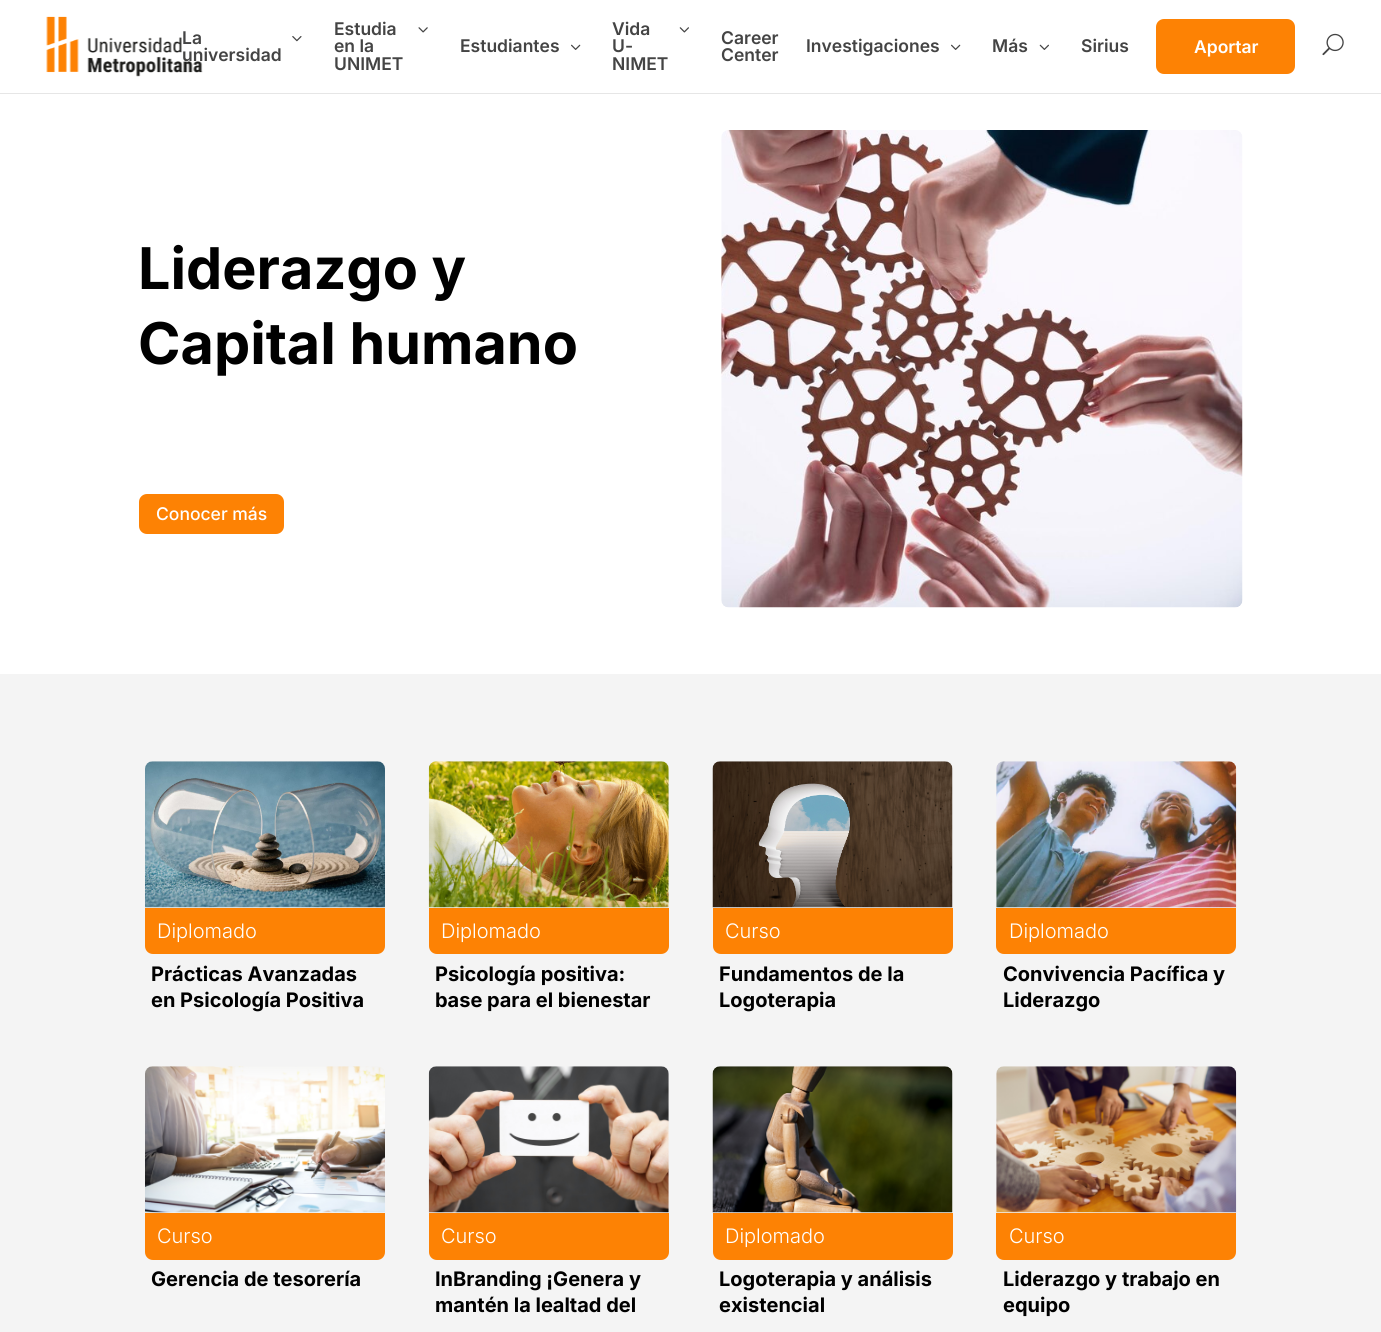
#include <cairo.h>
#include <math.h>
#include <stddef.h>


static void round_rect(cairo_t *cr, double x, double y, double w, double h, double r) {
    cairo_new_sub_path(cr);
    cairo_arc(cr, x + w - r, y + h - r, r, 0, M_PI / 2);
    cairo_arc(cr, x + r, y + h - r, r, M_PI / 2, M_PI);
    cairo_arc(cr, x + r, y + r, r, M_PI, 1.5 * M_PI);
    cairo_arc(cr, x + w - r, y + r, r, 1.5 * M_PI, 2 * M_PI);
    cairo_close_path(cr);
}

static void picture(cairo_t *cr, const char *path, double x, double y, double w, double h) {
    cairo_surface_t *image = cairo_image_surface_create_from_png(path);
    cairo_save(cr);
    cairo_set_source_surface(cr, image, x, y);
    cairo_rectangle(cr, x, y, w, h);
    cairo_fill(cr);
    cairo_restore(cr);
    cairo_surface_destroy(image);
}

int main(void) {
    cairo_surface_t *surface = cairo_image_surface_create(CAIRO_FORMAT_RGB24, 1381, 1332);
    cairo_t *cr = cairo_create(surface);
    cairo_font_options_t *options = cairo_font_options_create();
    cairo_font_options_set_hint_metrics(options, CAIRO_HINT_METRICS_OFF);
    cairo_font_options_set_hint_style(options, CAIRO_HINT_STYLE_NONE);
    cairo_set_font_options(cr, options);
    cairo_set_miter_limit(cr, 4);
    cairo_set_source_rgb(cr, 1, 1, 1);
    cairo_paint(cr);
    cairo_set_source_rgb(cr, 0.902, 0.902, 0.902);
    cairo_rectangle(cr, 0, 93, 1381, 1);
    cairo_fill(cr);
    picture(cr, "img1.png", 46, 16, 157, 61);
    cairo_select_font_face(cr, "Inter SemiBold", CAIRO_FONT_SLANT_NORMAL, CAIRO_FONT_WEIGHT_NORMAL);
    cairo_set_font_size(cr, 17.5);
    cairo_set_source_rgb(cr, 0.267, 0.267, 0.267);
    cairo_move_to(cr, 182, 44);
    cairo_show_text(cr, "La");
    picture(cr, "img2.png", 292, 36, 10, 6);
    cairo_move_to(cr, 182, 61);
    cairo_show_text(cr, "universidad");
    cairo_move_to(cr, 334, 35);
    cairo_show_text(cr, "Estudia");
    picture(cr, "img3.png", 418, 27, 10, 6);
    cairo_move_to(cr, 334, 52);
    cairo_show_text(cr, "en la");
    cairo_move_to(cr, 334, 70);
    cairo_show_text(cr, "UNIMET");
    cairo_move_to(cr, 460, 52);
    cairo_show_text(cr, "Estudiantes");
    picture(cr, "img4.png", 571, 44, 10, 6);
    cairo_move_to(cr, 612, 35);
    cairo_show_text(cr, "Vida");
    picture(cr, "img5.png", 679, 27, 10, 6);
    cairo_move_to(cr, 612, 52);
    cairo_show_text(cr, "U-");
    cairo_move_to(cr, 612, 70);
    cairo_show_text(cr, "NIMET");
    cairo_move_to(cr, 721, 44);
    cairo_show_text(cr, "Career");
    cairo_move_to(cr, 721, 61);
    cairo_show_text(cr, "Center");
    cairo_move_to(cr, 806, 52);
    cairo_show_text(cr, "Investigaciones");
    picture(cr, "img4.png", 951, 44, 10, 6);
    cairo_move_to(cr, 992, 52);
    cairo_show_text(cr, "Más");
    picture(cr, "img6.png", 1039, 44, 10, 6);
    cairo_move_to(cr, 1081, 52);
    cairo_show_text(cr, "Sirius");
    cairo_set_source_rgb(cr, 0.992, 0.51, 0.016);
    round_rect(cr, 1156, 19, 139, 55, 8);
    cairo_fill(cr);
    cairo_set_source_rgb(cr, 1, 1, 1);
    cairo_move_to(cr, 1194, 53);
    cairo_show_text(cr, "Aportar");
    picture(cr, "img7.png", 1322, 33, 22, 23);
    cairo_select_font_face(cr, "Inter", CAIRO_FONT_SLANT_NORMAL, CAIRO_FONT_WEIGHT_BOLD);
    cairo_set_font_size(cr, 57.5);
    cairo_set_source_rgb(cr, 0, 0, 0);
    cairo_move_to(cr, 138, 289);
    cairo_show_text(cr, "Liderazgo y");
    cairo_move_to(cr, 138, 364);
    cairo_show_text(cr, "Capital humano");
    cairo_set_source_rgb(cr, 0.992, 0.51, 0.016);
    round_rect(cr, 139, 494, 145, 40, 8);
    cairo_fill(cr);
    cairo_select_font_face(cr, "Inter Medium", CAIRO_FONT_SLANT_NORMAL, CAIRO_FONT_WEIGHT_NORMAL);
    cairo_set_font_size(cr, 17.5);
    cairo_set_source_rgb(cr, 1, 1, 1);
    cairo_move_to(cr, 156, 520);
    cairo_show_text(cr, "Conocer más");
    picture(cr, "img8.png", 721, 130, 522, 478);
    cairo_set_source_rgb(cr, 0.957, 0.957, 0.957);
    cairo_rectangle(cr, 0, 674, 1381, 658);
    cairo_fill(cr);
    picture(cr, "img9.png", 145, 761, 240, 147);
    cairo_set_source_rgb(cr, 0.992, 0.51, 0.016);
    cairo_new_path(cr);
    cairo_move_to(cr, 145, 908);
    cairo_line_to(cr, 385, 908);
    cairo_line_to(cr, 385, 946);
    cairo_curve_to(cr, 385, 950.5, 381.5, 954, 377, 954);
    cairo_line_to(cr, 153, 954);
    cairo_curve_to(cr, 148.5, 954, 145, 950.5, 145, 946);
    cairo_close_path(cr);
    cairo_fill(cr);
    cairo_select_font_face(cr, "Inter Light", CAIRO_FONT_SLANT_NORMAL, CAIRO_FONT_WEIGHT_NORMAL);
    cairo_set_font_size(cr, 20);
    cairo_set_source_rgb(cr, 1, 1, 1);
    cairo_move_to(cr, 157, 938);
    cairo_show_text(cr, "Diplomado");
    cairo_select_font_face(cr, "Inter", CAIRO_FONT_SLANT_NORMAL, CAIRO_FONT_WEIGHT_BOLD);
    cairo_set_source_rgb(cr, 0, 0, 0);
    cairo_move_to(cr, 151, 981);
    cairo_show_text(cr, "Prácticas Avanzadas");
    cairo_move_to(cr, 151, 1007);
    cairo_show_text(cr, "en Psicología Positiva");
    picture(cr, "img10.png", 428, 761, 241, 147);
    cairo_set_source_rgb(cr, 0.992, 0.51, 0.016);
    cairo_new_path(cr);
    cairo_move_to(cr, 429, 908);
    cairo_line_to(cr, 669, 908);
    cairo_line_to(cr, 669, 946);
    cairo_curve_to(cr, 669, 950.5, 665.5, 954, 661, 954);
    cairo_line_to(cr, 437, 954);
    cairo_curve_to(cr, 432.5, 954, 429, 950.5, 429, 946);
    cairo_close_path(cr);
    cairo_fill(cr);
    cairo_select_font_face(cr, "Inter Light", CAIRO_FONT_SLANT_NORMAL, CAIRO_FONT_WEIGHT_NORMAL);
    cairo_set_source_rgb(cr, 1, 1, 1);
    cairo_move_to(cr, 441, 938);
    cairo_show_text(cr, "Diplomado");
    cairo_select_font_face(cr, "Inter", CAIRO_FONT_SLANT_NORMAL, CAIRO_FONT_WEIGHT_BOLD);
    cairo_set_source_rgb(cr, 0, 0, 0);
    cairo_move_to(cr, 435, 981);
    cairo_show_text(cr, "Psicología positiva:");
    cairo_move_to(cr, 435, 1007);
    cairo_show_text(cr, "base para el bienestar");
    picture(cr, "img11.png", 712, 761, 241, 147);
    cairo_set_source_rgb(cr, 0.992, 0.51, 0.016);
    cairo_new_path(cr);
    cairo_move_to(cr, 713, 908);
    cairo_line_to(cr, 953, 908);
    cairo_line_to(cr, 953, 946);
    cairo_curve_to(cr, 953, 950.5, 949.5, 954, 945, 954);
    cairo_line_to(cr, 721, 954);
    cairo_curve_to(cr, 716.5, 954, 713, 950.5, 713, 946);
    cairo_close_path(cr);
    cairo_fill(cr);
    cairo_select_font_face(cr, "Inter Light", CAIRO_FONT_SLANT_NORMAL, CAIRO_FONT_WEIGHT_NORMAL);
    cairo_set_source_rgb(cr, 1, 1, 1);
    cairo_move_to(cr, 725, 938);
    cairo_show_text(cr, "Curso");
    cairo_select_font_face(cr, "Inter", CAIRO_FONT_SLANT_NORMAL, CAIRO_FONT_WEIGHT_BOLD);
    cairo_set_source_rgb(cr, 0, 0, 0);
    cairo_move_to(cr, 719, 981);
    cairo_show_text(cr, "Fundamentos de la");
    cairo_move_to(cr, 719, 1007);
    cairo_show_text(cr, "Logoterapia");
    picture(cr, "img12.png", 996, 761, 241, 147);
    cairo_set_source_rgb(cr, 0.992, 0.51, 0.016);
    cairo_new_path(cr);
    cairo_move_to(cr, 996, 908);
    cairo_line_to(cr, 1236, 908);
    cairo_line_to(cr, 1236, 946);
    cairo_curve_to(cr, 1236, 950.5, 1232.5, 954, 1228, 954);
    cairo_line_to(cr, 1004, 954);
    cairo_curve_to(cr, 999.5, 954, 996, 950.5, 996, 946);
    cairo_close_path(cr);
    cairo_fill(cr);
    cairo_select_font_face(cr, "Inter Light", CAIRO_FONT_SLANT_NORMAL, CAIRO_FONT_WEIGHT_NORMAL);
    cairo_set_source_rgb(cr, 1, 1, 1);
    cairo_move_to(cr, 1009, 938);
    cairo_show_text(cr, "Diplomado");
    cairo_select_font_face(cr, "Inter", CAIRO_FONT_SLANT_NORMAL, CAIRO_FONT_WEIGHT_BOLD);
    cairo_set_source_rgb(cr, 0, 0, 0);
    cairo_move_to(cr, 1003, 981);
    cairo_show_text(cr, "Convivencia Pacífica y");
    cairo_move_to(cr, 1003, 1007);
    cairo_show_text(cr, "Liderazgo");
    picture(cr, "img13.png", 145, 1066, 240, 147);
    cairo_set_source_rgb(cr, 0.992, 0.51, 0.016);
    cairo_new_path(cr);
    cairo_move_to(cr, 145, 1213);
    cairo_line_to(cr, 385, 1213);
    cairo_line_to(cr, 385, 1252);
    cairo_curve_to(cr, 385, 1256.5, 381.5, 1260, 377, 1260);
    cairo_line_to(cr, 153, 1260);
    cairo_curve_to(cr, 148.5, 1260, 145, 1256.5, 145, 1252);
    cairo_close_path(cr);
    cairo_fill(cr);
    cairo_select_font_face(cr, "Inter Light", CAIRO_FONT_SLANT_NORMAL, CAIRO_FONT_WEIGHT_NORMAL);
    cairo_set_source_rgb(cr, 1, 1, 1);
    cairo_move_to(cr, 157, 1243);
    cairo_show_text(cr, "Curso");
    cairo_select_font_face(cr, "Inter", CAIRO_FONT_SLANT_NORMAL, CAIRO_FONT_WEIGHT_BOLD);
    cairo_set_source_rgb(cr, 0, 0, 0);
    cairo_move_to(cr, 151, 1286);
    cairo_show_text(cr, "Gerencia de tesorería");
    picture(cr, "img14.png", 428, 1066, 241, 147);
    cairo_set_source_rgb(cr, 0.992, 0.51, 0.016);
    cairo_new_path(cr);
    cairo_move_to(cr, 429, 1213);
    cairo_line_to(cr, 669, 1213);
    cairo_line_to(cr, 669, 1252);
    cairo_curve_to(cr, 669, 1256.5, 665.5, 1260, 661, 1260);
    cairo_line_to(cr, 437, 1260);
    cairo_curve_to(cr, 432.5, 1260, 429, 1256.5, 429, 1252);
    cairo_close_path(cr);
    cairo_fill(cr);
    cairo_select_font_face(cr, "Inter Light", CAIRO_FONT_SLANT_NORMAL, CAIRO_FONT_WEIGHT_NORMAL);
    cairo_set_source_rgb(cr, 1, 1, 1);
    cairo_move_to(cr, 441, 1243);
    cairo_show_text(cr, "Curso");
    cairo_select_font_face(cr, "Inter", CAIRO_FONT_SLANT_NORMAL, CAIRO_FONT_WEIGHT_BOLD);
    cairo_set_source_rgb(cr, 0, 0, 0);
    cairo_move_to(cr, 435, 1286);
    cairo_show_text(cr, "InBranding ¡Genera y");
    cairo_move_to(cr, 435, 1312);
    cairo_show_text(cr, "mantén la lealtad del");
    picture(cr, "img15.png", 712, 1066, 241, 147);
    cairo_set_source_rgb(cr, 0.992, 0.51, 0.016);
    cairo_new_path(cr);
    cairo_move_to(cr, 713, 1213);
    cairo_line_to(cr, 953, 1213);
    cairo_line_to(cr, 953, 1252);
    cairo_curve_to(cr, 953, 1256.5, 949.5, 1260, 945, 1260);
    cairo_line_to(cr, 721, 1260);
    cairo_curve_to(cr, 716.5, 1260, 713, 1256.5, 713, 1252);
    cairo_close_path(cr);
    cairo_fill(cr);
    cairo_select_font_face(cr, "Inter Light", CAIRO_FONT_SLANT_NORMAL, CAIRO_FONT_WEIGHT_NORMAL);
    cairo_set_source_rgb(cr, 1, 1, 1);
    cairo_move_to(cr, 725, 1243);
    cairo_show_text(cr, "Diplomado");
    cairo_select_font_face(cr, "Inter", CAIRO_FONT_SLANT_NORMAL, CAIRO_FONT_WEIGHT_BOLD);
    cairo_set_source_rgb(cr, 0, 0, 0);
    cairo_move_to(cr, 719, 1286);
    cairo_show_text(cr, "Logoterapia y análisis");
    cairo_move_to(cr, 719, 1312);
    cairo_show_text(cr, "existencial");
    picture(cr, "img16.png", 996, 1066, 241, 147);
    cairo_set_source_rgb(cr, 0.992, 0.51, 0.016);
    cairo_new_path(cr);
    cairo_move_to(cr, 996, 1213);
    cairo_line_to(cr, 1236, 1213);
    cairo_line_to(cr, 1236, 1252);
    cairo_curve_to(cr, 1236, 1256.5, 1232.5, 1260, 1228, 1260);
    cairo_line_to(cr, 1004, 1260);
    cairo_curve_to(cr, 999.5, 1260, 996, 1256.5, 996, 1252);
    cairo_close_path(cr);
    cairo_fill(cr);
    cairo_select_font_face(cr, "Inter Light", CAIRO_FONT_SLANT_NORMAL, CAIRO_FONT_WEIGHT_NORMAL);
    cairo_set_source_rgb(cr, 1, 1, 1);
    cairo_move_to(cr, 1009, 1243);
    cairo_show_text(cr, "Curso");
    cairo_select_font_face(cr, "Inter", CAIRO_FONT_SLANT_NORMAL, CAIRO_FONT_WEIGHT_BOLD);
    cairo_set_source_rgb(cr, 0, 0, 0);
    cairo_move_to(cr, 1003, 1286);
    cairo_show_text(cr, "Liderazgo y trabajo en");
    cairo_move_to(cr, 1003, 1312);
    cairo_show_text(cr, "equipo");
    cairo_surface_write_to_png(surface, "page.png");
    cairo_font_options_destroy(options);
    cairo_destroy(cr);
    cairo_surface_destroy(surface);
    return 0;
}
